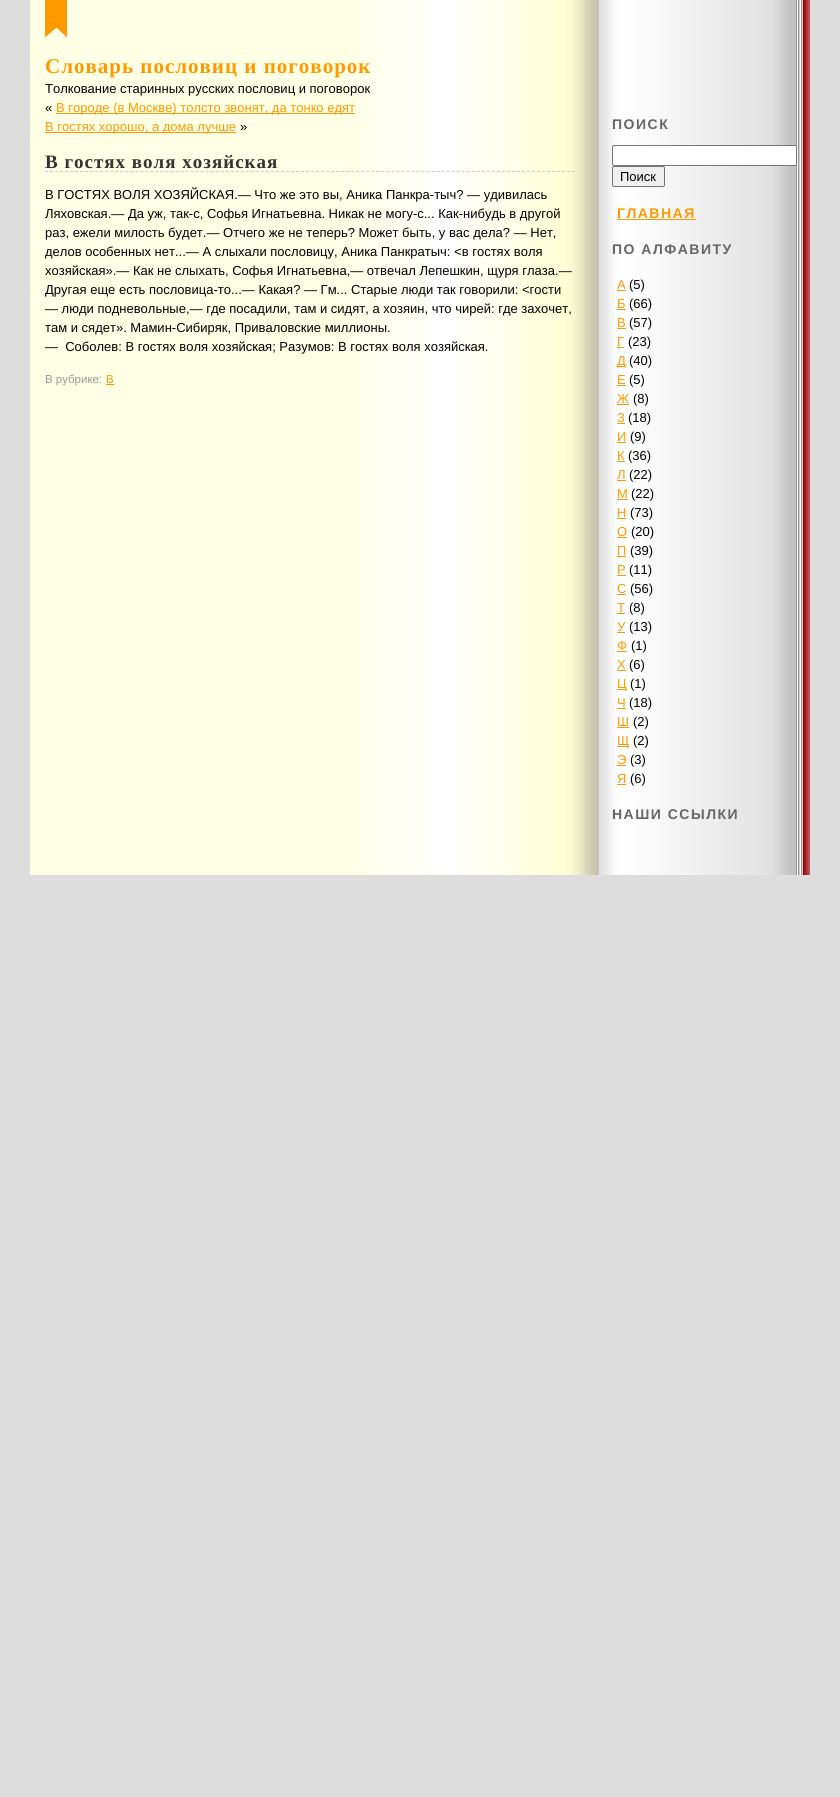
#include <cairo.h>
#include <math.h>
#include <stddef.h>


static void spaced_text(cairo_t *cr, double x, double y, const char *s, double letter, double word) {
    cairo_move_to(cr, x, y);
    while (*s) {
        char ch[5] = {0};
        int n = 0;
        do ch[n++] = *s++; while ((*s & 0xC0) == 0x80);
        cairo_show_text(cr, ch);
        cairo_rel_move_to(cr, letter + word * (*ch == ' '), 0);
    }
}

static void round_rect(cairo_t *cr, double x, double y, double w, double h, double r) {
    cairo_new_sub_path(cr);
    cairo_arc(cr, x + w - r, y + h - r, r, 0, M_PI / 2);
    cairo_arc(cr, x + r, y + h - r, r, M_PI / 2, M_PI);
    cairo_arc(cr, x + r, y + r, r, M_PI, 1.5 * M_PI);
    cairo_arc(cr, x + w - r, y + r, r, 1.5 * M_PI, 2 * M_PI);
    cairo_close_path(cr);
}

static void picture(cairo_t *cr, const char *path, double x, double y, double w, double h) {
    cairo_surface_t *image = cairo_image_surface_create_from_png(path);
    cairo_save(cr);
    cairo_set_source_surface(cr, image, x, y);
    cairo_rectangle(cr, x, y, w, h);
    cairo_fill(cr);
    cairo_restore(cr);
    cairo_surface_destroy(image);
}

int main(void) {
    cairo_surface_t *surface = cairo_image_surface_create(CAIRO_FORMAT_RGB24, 840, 1797);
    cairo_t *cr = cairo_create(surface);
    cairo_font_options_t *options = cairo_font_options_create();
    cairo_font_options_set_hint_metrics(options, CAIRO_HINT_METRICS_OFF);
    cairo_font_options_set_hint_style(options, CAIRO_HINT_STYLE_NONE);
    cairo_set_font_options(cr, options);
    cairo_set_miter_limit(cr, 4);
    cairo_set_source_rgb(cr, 0.867, 0.867, 0.867);
    cairo_paint(cr);
    picture(cr, "img1.png", 30, 0, 780, 875);
    picture(cr, "img2.png", 45, 0, 22, 38);
    cairo_select_font_face(cr, "Liberation Serif", CAIRO_FONT_SLANT_NORMAL, CAIRO_FONT_WEIGHT_BOLD);
    cairo_set_font_size(cr, 21);
    cairo_set_source_rgb(cr, 1, 0.6, 0);
    spaced_text(cr, 45, 73, "Словарь пословиц и поговорок", 1, 0);
    cairo_select_font_face(cr, "Liberation Sans", CAIRO_FONT_SLANT_NORMAL, CAIRO_FONT_WEIGHT_NORMAL);
    cairo_set_font_size(cr, 13);
    cairo_set_source_rgb(cr, 0, 0, 0);
    cairo_move_to(cr, 45, 93);
    cairo_show_text(cr, "Толкование старинных русских пословиц и поговорок");
    cairo_move_to(cr, 45, 112);
    cairo_show_text(cr, "«");
    cairo_set_source_rgb(cr, 1, 0.6, 0);
    cairo_rectangle(cr, 56, 113, 299, 1);
    cairo_fill(cr);
    cairo_move_to(cr, 56, 112);
    cairo_show_text(cr, "В городе (в Москве) толсто звонят, да тонко едят");
    cairo_rectangle(cr, 45, 132, 191, 1);
    cairo_fill(cr);
    cairo_move_to(cr, 45, 131);
    cairo_show_text(cr, "В гостях хорошо, а дома лучше");
    cairo_set_source_rgb(cr, 0, 0, 0);
    cairo_move_to(cr, 240, 131);
    cairo_show_text(cr, "»");
    cairo_new_path(cr);
    cairo_move_to(cr, 45, 171.5);
    cairo_line_to(cr, 575, 171.5);
    cairo_set_source_rgb(cr, 0.8, 0.8, 0.8);
    cairo_set_line_width(cr, 1);
    cairo_set_dash(cr, (double[]){3, 2.02}, 2, 0);
    cairo_stroke(cr);
    cairo_select_font_face(cr, "Liberation Serif", CAIRO_FONT_SLANT_NORMAL, CAIRO_FONT_WEIGHT_BOLD);
    cairo_set_font_size(cr, 19);
    cairo_set_source_rgb(cr, 0.2, 0.2, 0.2);
    spaced_text(cr, 45, 168, "В гостях воля хозяйская", 1, 0);
    cairo_select_font_face(cr, "Liberation Sans", CAIRO_FONT_SLANT_NORMAL, CAIRO_FONT_WEIGHT_NORMAL);
    cairo_set_font_size(cr, 13);
    cairo_set_source_rgb(cr, 0, 0, 0);
    cairo_move_to(cr, 45, 199);
    cairo_show_text(cr, "В ГОСТЯХ ВОЛЯ ХОЗЯЙСКАЯ.— Что же это вы, Аника Панкра-тыч? — удивилась");
    cairo_move_to(cr, 45, 218);
    cairo_show_text(cr, "Ляховская.— Да уж, так-с, Софья Игнатьевна. Никак не могу-с... Как-нибудь в другой");
    cairo_move_to(cr, 45, 237);
    cairo_show_text(cr, "раз, ежели милость будет.— Отчего же не теперь? Может быть, у вас дела? — Нет,");
    cairo_move_to(cr, 45, 256);
    cairo_show_text(cr, "делов особенных нет...— А слыхали пословицу, Аника Панкратыч: <в гостях воля");
    cairo_move_to(cr, 45, 275);
    cairo_show_text(cr, "хозяйская».— Как не слыхать, Софья Игнатьевна,— отвечал Лепешкин, щуря глаза.—");
    cairo_move_to(cr, 45, 294);
    cairo_show_text(cr, "Другая еще есть пословица-то...— Какая? — Гм... Старые люди так говорили: <гости");
    cairo_move_to(cr, 45, 313);
    cairo_show_text(cr, "— люди подневольные,— где посадили, там и сидят, а хозяин, что чирей: где захочет,");
    cairo_move_to(cr, 45, 332);
    cairo_show_text(cr, "там и сядет». Мамин-Сибиряк, Приваловские миллионы.");
    cairo_move_to(cr, 45, 351);
    cairo_show_text(cr, "—  Соболев: В гостях воля хозяйская; Разумов: В гостях воля хозяйская.");
    cairo_set_font_size(cr, 11.5);
    cairo_set_source_rgb(cr, 0.6, 0.6, 0.6);
    cairo_move_to(cr, 45, 383);
    cairo_show_text(cr, "В рубрике:");
    cairo_set_source_rgb(cr, 1, 0.6, 0);
    cairo_move_to(cr, 106, 383);
    cairo_show_text(cr, "В");
    cairo_rectangle(cr, 106, 384, 8, 1);
    cairo_fill(cr);
    cairo_select_font_face(cr, "Liberation Sans", CAIRO_FONT_SLANT_NORMAL, CAIRO_FONT_WEIGHT_BOLD);
    cairo_set_font_size(cr, 14);
    cairo_set_source_rgb(cr, 0.4, 0.4, 0.4);
    spaced_text(cr, 612, 129, "ПОИСК", 1.5, 0);
    cairo_set_source_rgb(cr, 1, 1, 1);
    round_rect(cr, 612.5, 145.5, 184, 20, 1.5);
    cairo_fill_preserve(cr);
    cairo_set_source_rgb(cr, 0.463, 0.463, 0.463);
    cairo_set_dash(cr, NULL, 0, 0);
    cairo_stroke(cr);
    cairo_set_source_rgb(cr, 0.937, 0.937, 0.937);
    round_rect(cr, 612.5, 166.5, 52, 20, 1.5);
    cairo_fill_preserve(cr);
    cairo_set_source_rgb(cr, 0.463, 0.463, 0.463);
    cairo_stroke(cr);
    cairo_select_font_face(cr, "Liberation Sans", CAIRO_FONT_SLANT_NORMAL, CAIRO_FONT_WEIGHT_NORMAL);
    cairo_set_font_size(cr, 13);
    cairo_set_source_rgb(cr, 0, 0, 0);
    cairo_move_to(cr, 620, 181);
    cairo_show_text(cr, "Поиск");
    cairo_select_font_face(cr, "Liberation Sans", CAIRO_FONT_SLANT_NORMAL, CAIRO_FONT_WEIGHT_BOLD);
    cairo_set_font_size(cr, 14);
    cairo_set_source_rgb(cr, 1, 0.6, 0);
    spaced_text(cr, 617, 218, "ГЛАВНАЯ", 1.5, 0);
    cairo_rectangle(cr, 617, 219, 79, 1);
    cairo_fill(cr);
    cairo_set_source_rgb(cr, 0.4, 0.4, 0.4);
    spaced_text(cr, 612, 254, "ПО АЛФАВИТУ", 1.5, 0);
    cairo_select_font_face(cr, "Liberation Sans", CAIRO_FONT_SLANT_NORMAL, CAIRO_FONT_WEIGHT_NORMAL);
    cairo_set_font_size(cr, 13);
    cairo_set_source_rgb(cr, 1, 0.6, 0);
    cairo_move_to(cr, 617, 289);
    cairo_show_text(cr, "А");
    cairo_rectangle(cr, 617, 290, 9, 1);
    cairo_fill(cr);
    cairo_set_source_rgb(cr, 0, 0, 0);
    cairo_move_to(cr, 629, 289);
    cairo_show_text(cr, "(5)");
    cairo_set_source_rgb(cr, 1, 0.6, 0);
    cairo_move_to(cr, 617, 308);
    cairo_show_text(cr, "Б");
    cairo_rectangle(cr, 617, 309, 9, 1);
    cairo_fill(cr);
    cairo_set_source_rgb(cr, 0, 0, 0);
    cairo_move_to(cr, 629, 308);
    cairo_show_text(cr, "(66)");
    cairo_set_source_rgb(cr, 1, 0.6, 0);
    cairo_move_to(cr, 617, 327);
    cairo_show_text(cr, "В");
    cairo_rectangle(cr, 617, 328, 9, 1);
    cairo_fill(cr);
    cairo_set_source_rgb(cr, 0, 0, 0);
    cairo_move_to(cr, 629, 327);
    cairo_show_text(cr, "(57)");
    cairo_set_source_rgb(cr, 1, 0.6, 0);
    cairo_move_to(cr, 617, 346);
    cairo_show_text(cr, "Г");
    cairo_rectangle(cr, 617, 347, 7, 1);
    cairo_fill(cr);
    cairo_set_source_rgb(cr, 0, 0, 0);
    cairo_move_to(cr, 628, 346);
    cairo_show_text(cr, "(23)");
    cairo_set_source_rgb(cr, 1, 0.6, 0);
    cairo_rectangle(cr, 617, 366, 9, 1);
    cairo_fill(cr);
    cairo_move_to(cr, 617, 365);
    cairo_show_text(cr, "Д");
    cairo_set_source_rgb(cr, 0, 0, 0);
    cairo_move_to(cr, 629, 365);
    cairo_show_text(cr, "(40)");
    cairo_set_source_rgb(cr, 1, 0.6, 0);
    cairo_move_to(cr, 617, 384);
    cairo_show_text(cr, "Е");
    cairo_rectangle(cr, 617, 385, 9, 1);
    cairo_fill(cr);
    cairo_set_source_rgb(cr, 0, 0, 0);
    cairo_move_to(cr, 629, 384);
    cairo_show_text(cr, "(5)");
    cairo_set_source_rgb(cr, 1, 0.6, 0);
    cairo_move_to(cr, 617, 403);
    cairo_show_text(cr, "Ж");
    cairo_rectangle(cr, 617, 404, 12, 1);
    cairo_fill(cr);
    cairo_set_source_rgb(cr, 0, 0, 0);
    cairo_move_to(cr, 633, 403);
    cairo_show_text(cr, "(8)");
    cairo_set_source_rgb(cr, 1, 0.6, 0);
    cairo_move_to(cr, 617, 422);
    cairo_show_text(cr, "З");
    cairo_rectangle(cr, 617, 423, 8, 1);
    cairo_fill(cr);
    cairo_set_source_rgb(cr, 0, 0, 0);
    cairo_move_to(cr, 628, 422);
    cairo_show_text(cr, "(18)");
    cairo_set_source_rgb(cr, 1, 0.6, 0);
    cairo_move_to(cr, 617, 441);
    cairo_show_text(cr, "И");
    cairo_rectangle(cr, 617, 442, 9, 1);
    cairo_fill(cr);
    cairo_set_source_rgb(cr, 0, 0, 0);
    cairo_move_to(cr, 630, 441);
    cairo_show_text(cr, "(9)");
    cairo_set_source_rgb(cr, 1, 0.6, 0);
    cairo_move_to(cr, 617, 460);
    cairo_show_text(cr, "К");
    cairo_rectangle(cr, 617, 461, 8, 1);
    cairo_fill(cr);
    cairo_set_source_rgb(cr, 0, 0, 0);
    cairo_move_to(cr, 628, 460);
    cairo_show_text(cr, "(36)");
    cairo_set_source_rgb(cr, 1, 0.6, 0);
    cairo_move_to(cr, 617, 479);
    cairo_show_text(cr, "Л");
    cairo_rectangle(cr, 617, 480, 9, 1);
    cairo_fill(cr);
    cairo_set_source_rgb(cr, 0, 0, 0);
    cairo_move_to(cr, 629, 479);
    cairo_show_text(cr, "(22)");
    cairo_set_source_rgb(cr, 1, 0.6, 0);
    cairo_move_to(cr, 617, 498);
    cairo_show_text(cr, "М");
    cairo_rectangle(cr, 617, 499, 11, 1);
    cairo_fill(cr);
    cairo_set_source_rgb(cr, 0, 0, 0);
    cairo_move_to(cr, 631, 498);
    cairo_show_text(cr, "(22)");
    cairo_set_source_rgb(cr, 1, 0.6, 0);
    cairo_move_to(cr, 617, 517);
    cairo_show_text(cr, "Н");
    cairo_rectangle(cr, 617, 518, 9, 1);
    cairo_fill(cr);
    cairo_set_source_rgb(cr, 0, 0, 0);
    cairo_move_to(cr, 630, 517);
    cairo_show_text(cr, "(73)");
    cairo_set_source_rgb(cr, 1, 0.6, 0);
    cairo_move_to(cr, 617, 536);
    cairo_show_text(cr, "О");
    cairo_rectangle(cr, 617, 537, 10, 1);
    cairo_fill(cr);
    cairo_set_source_rgb(cr, 0, 0, 0);
    cairo_move_to(cr, 631, 536);
    cairo_show_text(cr, "(20)");
    cairo_set_source_rgb(cr, 1, 0.6, 0);
    cairo_move_to(cr, 617, 555);
    cairo_show_text(cr, "П");
    cairo_rectangle(cr, 617, 556, 9, 1);
    cairo_fill(cr);
    cairo_set_source_rgb(cr, 0, 0, 0);
    cairo_move_to(cr, 630, 555);
    cairo_show_text(cr, "(39)");
    cairo_set_source_rgb(cr, 1, 0.6, 0);
    cairo_move_to(cr, 617, 574);
    cairo_show_text(cr, "Р");
    cairo_rectangle(cr, 617, 575, 9, 1);
    cairo_fill(cr);
    cairo_set_source_rgb(cr, 0, 0, 0);
    cairo_move_to(cr, 629, 574);
    cairo_show_text(cr, "(11)");
    cairo_set_source_rgb(cr, 1, 0.6, 0);
    cairo_move_to(cr, 617, 593);
    cairo_show_text(cr, "С");
    cairo_rectangle(cr, 617, 594, 9, 1);
    cairo_fill(cr);
    cairo_set_source_rgb(cr, 0, 0, 0);
    cairo_move_to(cr, 630, 593);
    cairo_show_text(cr, "(56)");
    cairo_set_source_rgb(cr, 1, 0.6, 0);
    cairo_move_to(cr, 617, 612);
    cairo_show_text(cr, "Т");
    cairo_rectangle(cr, 617, 613, 8, 1);
    cairo_fill(cr);
    cairo_set_source_rgb(cr, 0, 0, 0);
    cairo_move_to(cr, 629, 612);
    cairo_show_text(cr, "(8)");
    cairo_set_source_rgb(cr, 1, 0.6, 0);
    cairo_move_to(cr, 617, 631);
    cairo_show_text(cr, "У");
    cairo_rectangle(cr, 617, 632, 8, 1);
    cairo_fill(cr);
    cairo_set_source_rgb(cr, 0, 0, 0);
    cairo_move_to(cr, 629, 631);
    cairo_show_text(cr, "(13)");
    cairo_set_source_rgb(cr, 1, 0.6, 0);
    cairo_move_to(cr, 617, 650);
    cairo_show_text(cr, "Ф");
    cairo_rectangle(cr, 617, 651, 10, 1);
    cairo_fill(cr);
    cairo_set_source_rgb(cr, 0, 0, 0);
    cairo_move_to(cr, 631, 650);
    cairo_show_text(cr, "(1)");
    cairo_set_source_rgb(cr, 1, 0.6, 0);
    cairo_move_to(cr, 617, 669);
    cairo_show_text(cr, "Х");
    cairo_rectangle(cr, 617, 670, 9, 1);
    cairo_fill(cr);
    cairo_set_source_rgb(cr, 0, 0, 0);
    cairo_move_to(cr, 629, 669);
    cairo_show_text(cr, "(6)");
    cairo_set_source_rgb(cr, 1, 0.6, 0);
    cairo_rectangle(cr, 617, 689, 10, 1);
    cairo_fill(cr);
    cairo_move_to(cr, 617, 688);
    cairo_show_text(cr, "Ц");
    cairo_set_source_rgb(cr, 0, 0, 0);
    cairo_move_to(cr, 630, 688);
    cairo_show_text(cr, "(1)");
    cairo_set_source_rgb(cr, 1, 0.6, 0);
    cairo_move_to(cr, 617, 707);
    cairo_show_text(cr, "Ч");
    cairo_rectangle(cr, 617, 708, 9, 1);
    cairo_fill(cr);
    cairo_set_source_rgb(cr, 0, 0, 0);
    cairo_move_to(cr, 629, 707);
    cairo_show_text(cr, "(18)");
    cairo_set_source_rgb(cr, 1, 0.6, 0);
    cairo_move_to(cr, 617, 726);
    cairo_show_text(cr, "Ш");
    cairo_rectangle(cr, 617, 727, 12, 1);
    cairo_fill(cr);
    cairo_set_source_rgb(cr, 0, 0, 0);
    cairo_move_to(cr, 633, 726);
    cairo_show_text(cr, "(2)");
    cairo_set_source_rgb(cr, 1, 0.6, 0);
    cairo_rectangle(cr, 617, 746, 12, 1);
    cairo_fill(cr);
    cairo_move_to(cr, 617, 745);
    cairo_show_text(cr, "Щ");
    cairo_set_source_rgb(cr, 0, 0, 0);
    cairo_move_to(cr, 633, 745);
    cairo_show_text(cr, "(2)");
    cairo_set_source_rgb(cr, 1, 0.6, 0);
    cairo_move_to(cr, 617, 764);
    cairo_show_text(cr, "Э");
    cairo_rectangle(cr, 617, 765, 9, 1);
    cairo_fill(cr);
    cairo_set_source_rgb(cr, 0, 0, 0);
    cairo_move_to(cr, 630, 764);
    cairo_show_text(cr, "(3)");
    cairo_set_source_rgb(cr, 1, 0.6, 0);
    cairo_move_to(cr, 617, 783);
    cairo_show_text(cr, "Я");
    cairo_rectangle(cr, 617, 784, 9, 1);
    cairo_fill(cr);
    cairo_set_source_rgb(cr, 0, 0, 0);
    cairo_move_to(cr, 630, 783);
    cairo_show_text(cr, "(6)");
    cairo_select_font_face(cr, "Liberation Sans", CAIRO_FONT_SLANT_NORMAL, CAIRO_FONT_WEIGHT_BOLD);
    cairo_set_font_size(cr, 14);
    cairo_set_source_rgb(cr, 0.4, 0.4, 0.4);
    spaced_text(cr, 612, 819, "НАШИ ССЫЛКИ", 1.5, 0);
    cairo_surface_write_to_png(surface, "page.png");
    cairo_font_options_destroy(options);
    cairo_destroy(cr);
    cairo_surface_destroy(surface);
    return 0;
}
